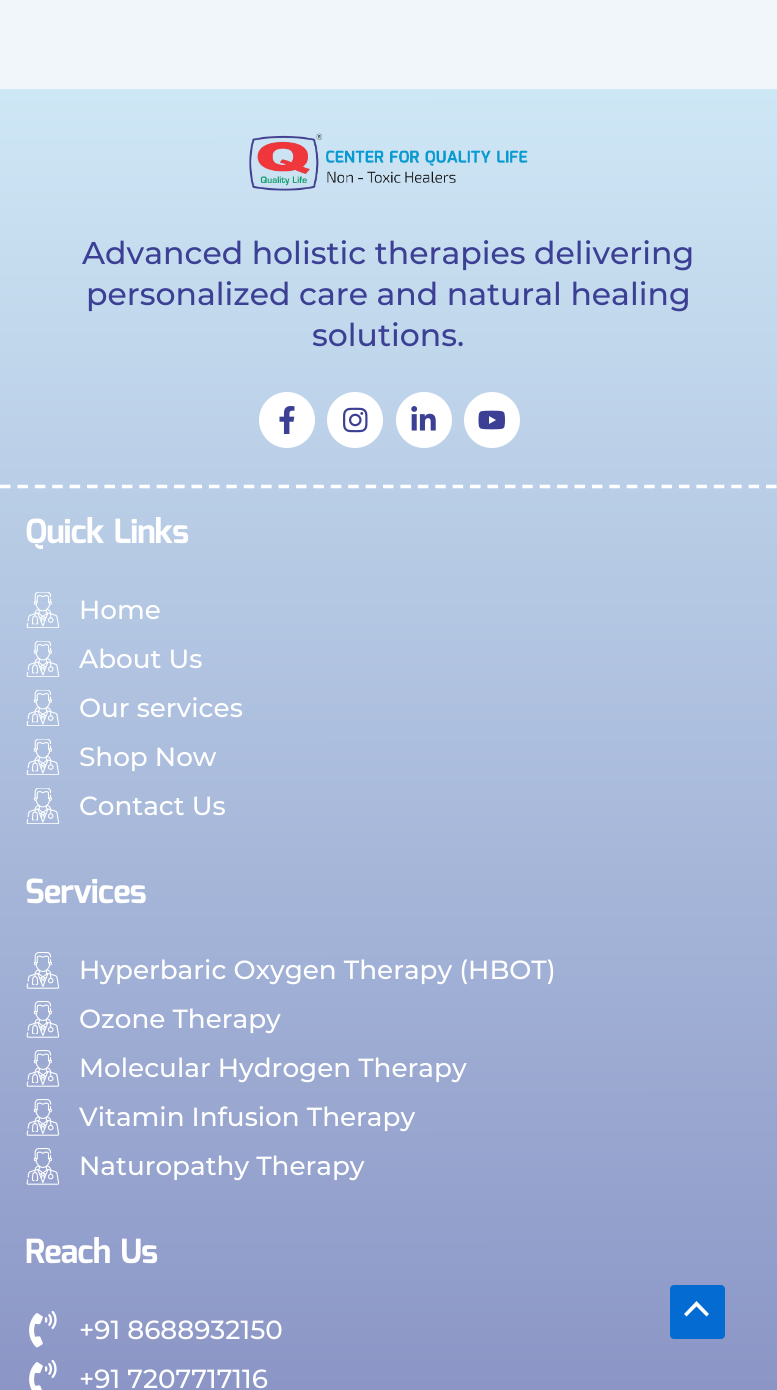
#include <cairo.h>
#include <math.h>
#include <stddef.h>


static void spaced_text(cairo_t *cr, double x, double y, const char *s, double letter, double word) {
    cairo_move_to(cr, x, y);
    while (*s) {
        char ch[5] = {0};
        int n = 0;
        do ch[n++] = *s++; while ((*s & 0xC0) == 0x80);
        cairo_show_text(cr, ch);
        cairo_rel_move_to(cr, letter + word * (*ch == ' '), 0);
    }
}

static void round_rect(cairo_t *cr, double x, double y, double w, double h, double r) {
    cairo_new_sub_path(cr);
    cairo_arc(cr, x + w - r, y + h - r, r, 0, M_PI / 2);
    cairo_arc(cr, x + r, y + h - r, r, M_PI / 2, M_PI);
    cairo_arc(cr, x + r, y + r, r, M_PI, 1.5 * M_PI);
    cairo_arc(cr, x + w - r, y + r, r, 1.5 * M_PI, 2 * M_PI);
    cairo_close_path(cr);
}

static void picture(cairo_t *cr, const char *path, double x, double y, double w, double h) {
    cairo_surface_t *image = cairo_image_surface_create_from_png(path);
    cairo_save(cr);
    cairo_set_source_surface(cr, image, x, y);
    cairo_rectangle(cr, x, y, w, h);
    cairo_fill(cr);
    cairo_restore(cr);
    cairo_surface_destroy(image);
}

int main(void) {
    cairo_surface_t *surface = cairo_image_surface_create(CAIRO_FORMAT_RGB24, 777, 1390);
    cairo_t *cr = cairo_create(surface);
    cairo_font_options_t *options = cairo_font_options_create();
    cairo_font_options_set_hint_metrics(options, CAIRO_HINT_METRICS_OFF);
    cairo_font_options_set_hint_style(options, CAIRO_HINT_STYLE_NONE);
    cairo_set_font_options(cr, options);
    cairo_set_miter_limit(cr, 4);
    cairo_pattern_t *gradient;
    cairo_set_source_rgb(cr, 0.941, 0.961, 0.98);
    cairo_paint(cr);
    gradient = cairo_pattern_create_linear(388, 89, 389, 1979);
    cairo_pattern_add_color_stop_rgba(gradient, 0, 0.808, 0.906, 0.961, 1);
    cairo_pattern_add_color_stop_rgba(gradient, 1, 0.427, 0.443, 0.694, 1);
    cairo_set_source(cr, gradient);
    cairo_pattern_destroy(gradient);
    cairo_rectangle(cr, 0, 89, 777, 1301);
    cairo_fill(cr);
    picture(cr, "img1.png", 249, 133, 279, 58);
    cairo_select_font_face(cr, "Montserrat Medium", CAIRO_FONT_SLANT_NORMAL, CAIRO_FONT_WEIGHT_NORMAL);
    cairo_set_font_size(cr, 31.5);
    cairo_set_source_rgb(cr, 0.235, 0.251, 0.58);
    cairo_move_to(cr, 82, 264);
    cairo_show_text(cr, "Advanced holistic therapies delivering");
    cairo_move_to(cr, 86, 305);
    cairo_show_text(cr, "personalized care and natural healing");
    cairo_move_to(cr, 312, 346);
    cairo_show_text(cr, "solutions.");
    cairo_set_source_rgb(cr, 1, 1, 1);
    cairo_new_path(cr);
    cairo_arc(cr, 287, 420, 28, 0, 2 * M_PI);
    cairo_fill(cr);
    picture(cr, "img2.png", 279, 406, 16, 28);
    cairo_arc(cr, 355, 420, 28, 0, 2 * M_PI);
    cairo_fill(cr);
    picture(cr, "img3.png", 343, 407, 25, 26);
    cairo_arc(cr, 424, 420, 28, 0, 2 * M_PI);
    cairo_fill(cr);
    picture(cr, "img4.png", 411, 406, 25, 25);
    cairo_arc(cr, 492, 420, 28, 0, 2 * M_PI);
    cairo_fill(cr);
    picture(cr, "img5.png", 478, 410, 27, 20);
    cairo_new_path(cr);
    cairo_move_to(cr, 0, 486.5);
    cairo_line_to(cr, 777, 486.5);
    cairo_set_line_width(cr, 3.5);
    cairo_set_dash(cr, (double[]){10.5, 6.91}, 2, 0);
    cairo_stroke(cr);
    cairo_select_font_face(cr, "Mina", CAIRO_FONT_SLANT_NORMAL, CAIRO_FONT_WEIGHT_BOLD);
    cairo_set_font_size(cr, 33.25);
    spaced_text(cr, 25, 543, "Quick Links", -0.9, 0);
    picture(cr, "img6.png", 26, 592, 34, 36);
    cairo_select_font_face(cr, "Montserrat Medium", CAIRO_FONT_SLANT_NORMAL, CAIRO_FONT_WEIGHT_NORMAL);
    cairo_set_font_size(cr, 26.25);
    cairo_move_to(cr, 79, 619);
    cairo_show_text(cr, "Home");
    picture(cr, "img7.png", 26, 641, 34, 36);
    cairo_move_to(cr, 79, 668);
    cairo_show_text(cr, "About Us");
    picture(cr, "img8.png", 26, 690, 34, 36);
    cairo_move_to(cr, 79, 717);
    cairo_show_text(cr, "Our services");
    picture(cr, "img9.png", 26, 739, 34, 36);
    cairo_move_to(cr, 79, 766);
    cairo_show_text(cr, "Shop Now");
    picture(cr, "img10.png", 26, 788, 34, 36);
    cairo_move_to(cr, 79, 815);
    cairo_show_text(cr, "Contact Us");
    cairo_select_font_face(cr, "Mina", CAIRO_FONT_SLANT_NORMAL, CAIRO_FONT_WEIGHT_BOLD);
    cairo_set_font_size(cr, 33.25);
    spaced_text(cr, 25, 903, "Services", -0.9, 0);
    picture(cr, "img11.png", 26, 952, 34, 37);
    cairo_select_font_face(cr, "Montserrat Medium", CAIRO_FONT_SLANT_NORMAL, CAIRO_FONT_WEIGHT_NORMAL);
    cairo_set_font_size(cr, 26.25);
    cairo_move_to(cr, 79, 979);
    cairo_show_text(cr, "Hyperbaric Oxygen Therapy (HBOT)");
    picture(cr, "img12.png", 26, 1001, 34, 37);
    cairo_move_to(cr, 79, 1028);
    cairo_show_text(cr, "Ozone Therapy");
    picture(cr, "img13.png", 26, 1050, 34, 37);
    cairo_move_to(cr, 79, 1077);
    cairo_show_text(cr, "Molecular Hydrogen Therapy");
    picture(cr, "img14.png", 26, 1099, 34, 37);
    cairo_move_to(cr, 79, 1126);
    cairo_show_text(cr, "Vitamin Infusion Therapy");
    picture(cr, "img15.png", 26, 1148, 34, 37);
    cairo_move_to(cr, 79, 1175);
    cairo_show_text(cr, "Naturopathy Therapy");
    cairo_select_font_face(cr, "Mina", CAIRO_FONT_SLANT_NORMAL, CAIRO_FONT_WEIGHT_BOLD);
    cairo_set_font_size(cr, 33.25);
    spaced_text(cr, 25, 1263, "Reach Us", -0.9, 0);
    picture(cr, "img16.png", 29, 1311, 28, 37);
    cairo_select_font_face(cr, "Montserrat Medium", CAIRO_FONT_SLANT_NORMAL, CAIRO_FONT_WEIGHT_NORMAL);
    cairo_set_font_size(cr, 26.25);
    cairo_move_to(cr, 79, 1339);
    cairo_show_text(cr, "+91 8688932150");
    picture(cr, "img17.png", 29, 1360, 28, 30);
    cairo_move_to(cr, 79, 1388);
    cairo_show_text(cr, "+91 7207717116");
    cairo_set_source_rgb(cr, 0.016, 0.42, 0.824);
    round_rect(cr, 670, 1285, 55, 54, 4);
    cairo_fill(cr);
    cairo_set_source_rgb(cr, 1, 1, 1);
    cairo_new_path(cr);
    cairo_move_to(cr, 709, 1314);
    cairo_line_to(cr, 696.5, 1301);
    cairo_line_to(cr, 684, 1314);
    cairo_line_to(cr, 686.5, 1316.5);
    cairo_line_to(cr, 696.5, 1306.5);
    cairo_line_to(cr, 706.5, 1316.5);
    cairo_close_path(cr);
    cairo_fill(cr);
    cairo_surface_write_to_png(surface, "page.png");
    cairo_font_options_destroy(options);
    cairo_destroy(cr);
    cairo_surface_destroy(surface);
    return 0;
}
